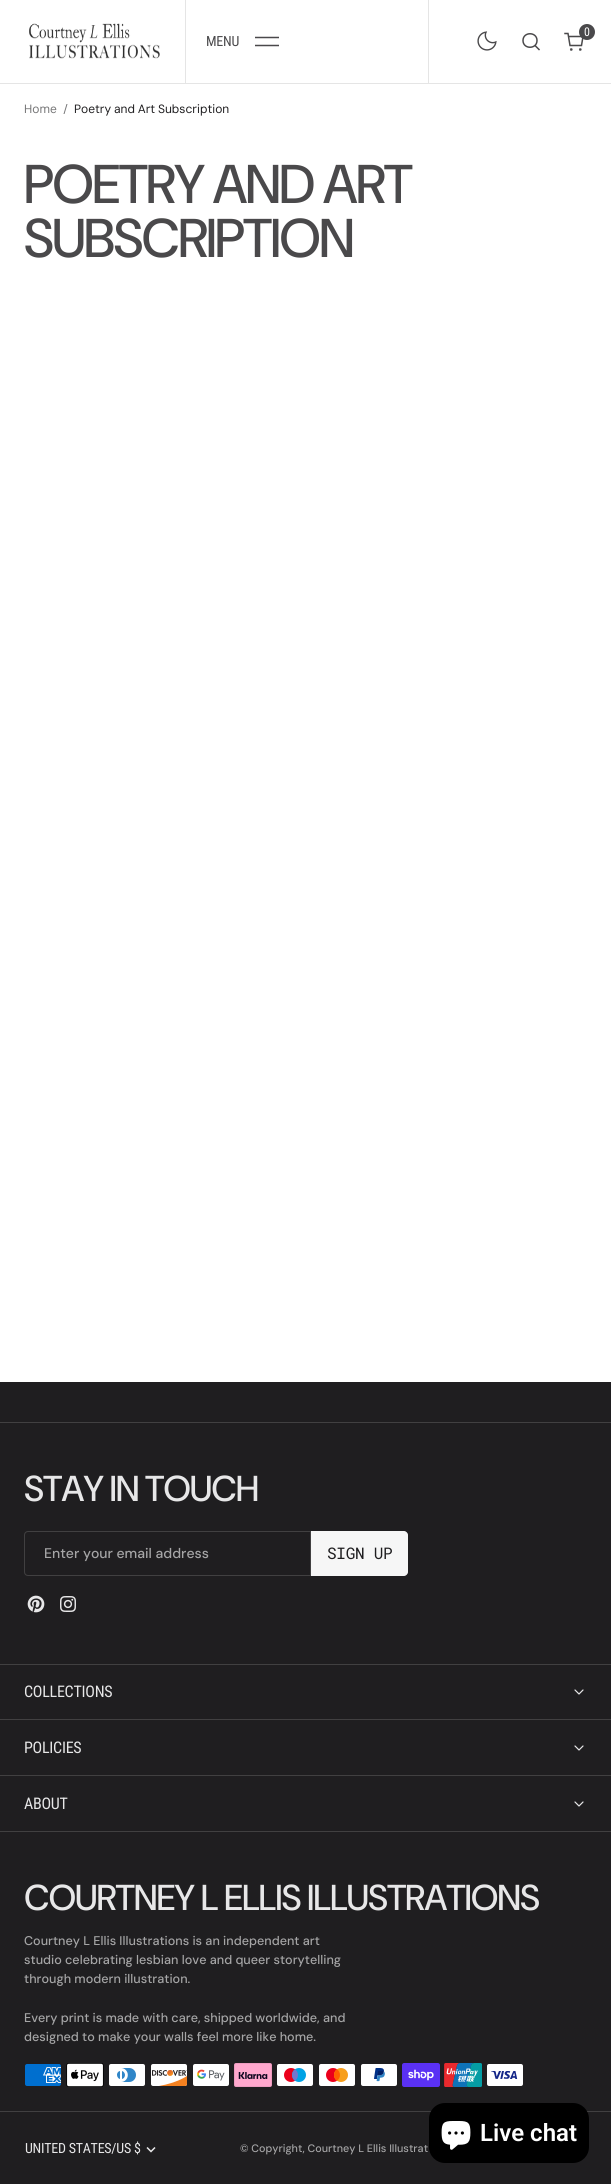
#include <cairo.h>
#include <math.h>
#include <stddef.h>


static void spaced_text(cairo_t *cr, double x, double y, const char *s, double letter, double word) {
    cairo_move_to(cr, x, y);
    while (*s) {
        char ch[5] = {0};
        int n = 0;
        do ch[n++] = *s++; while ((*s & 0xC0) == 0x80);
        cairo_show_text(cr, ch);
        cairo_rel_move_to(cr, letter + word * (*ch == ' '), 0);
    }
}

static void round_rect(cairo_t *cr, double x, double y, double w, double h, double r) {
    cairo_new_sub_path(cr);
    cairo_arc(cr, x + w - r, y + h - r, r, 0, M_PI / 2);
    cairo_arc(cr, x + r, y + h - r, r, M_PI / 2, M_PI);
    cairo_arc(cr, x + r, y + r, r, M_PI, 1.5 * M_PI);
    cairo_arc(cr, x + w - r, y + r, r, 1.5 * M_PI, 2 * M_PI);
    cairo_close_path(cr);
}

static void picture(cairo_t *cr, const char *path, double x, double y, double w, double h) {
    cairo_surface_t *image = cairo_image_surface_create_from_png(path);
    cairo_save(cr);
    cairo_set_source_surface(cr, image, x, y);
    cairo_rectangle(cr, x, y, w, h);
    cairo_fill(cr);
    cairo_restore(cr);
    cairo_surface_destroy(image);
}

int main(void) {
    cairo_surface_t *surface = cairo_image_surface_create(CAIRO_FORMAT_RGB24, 611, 2184);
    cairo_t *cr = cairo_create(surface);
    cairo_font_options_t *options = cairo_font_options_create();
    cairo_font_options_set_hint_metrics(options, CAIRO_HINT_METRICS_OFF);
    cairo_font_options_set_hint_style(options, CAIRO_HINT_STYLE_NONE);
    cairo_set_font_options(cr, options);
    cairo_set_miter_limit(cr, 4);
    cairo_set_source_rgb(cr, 1, 1, 1);
    cairo_paint(cr);
    cairo_set_source_rgb(cr, 0.898, 0.898, 0.898);
    cairo_rectangle(cr, 0, 83, 611, 1);
    cairo_fill(cr);
    cairo_rectangle(cr, 428, 0, 1, 83);
    cairo_fill(cr);
    picture(cr, "img1.png", 477, 31, 20, 20);
    cairo_new_path(cr);
    cairo_move_to(cr, 539, 49.5);
    cairo_line_to(cr, 535, 45.5);
    cairo_move_to(cr, 537, 40.5);
    cairo_curve_to(cr, 537, 49.5, 523, 49.5, 523, 40.5);
    cairo_curve_to(cr, 523, 31.5, 537, 31.5, 537, 40.5);
    cairo_close_path(cr);
    cairo_set_source_rgb(cr, 0.29, 0.286, 0.294);
    cairo_set_line_width(cr, 1.5);
    cairo_set_line_cap(cr, CAIRO_LINE_CAP_SQUARE);
    cairo_stroke(cr);
    picture(cr, "img2.png", 564, 32, 20, 19);
    cairo_arc(cr, 587, 32, 8, 0, 2 * M_PI);
    cairo_fill(cr);
    cairo_select_font_face(cr, "Roboto Condensed", CAIRO_FONT_SLANT_NORMAL, CAIRO_FONT_WEIGHT_NORMAL);
    cairo_set_font_size(cr, 12);
    cairo_set_source_rgb(cr, 1, 1, 1);
    spaced_text(cr, 584, 36, "0", -0.25, 0);
    picture(cr, "img3.png", 29, 23, 131, 36);
    cairo_set_source_rgb(cr, 0.898, 0.898, 0.898);
    cairo_rectangle(cr, 185, 0, 1, 83);
    cairo_fill(cr);
    cairo_set_font_size(cr, 14);
    cairo_set_source_rgb(cr, 0.29, 0.286, 0.294);
    spaced_text(cr, 206, 46, "MENU", -0.25, 0);
    cairo_new_path(cr);
    cairo_move_to(cr, 255, 37.5);
    cairo_line_to(cr, 279, 37.5);
    cairo_move_to(cr, 255, 45.5);
    cairo_line_to(cr, 279, 45.5);
    cairo_set_line_cap(cr, CAIRO_LINE_CAP_BUTT);
    cairo_stroke(cr);
    cairo_select_font_face(cr, "DM Sans", CAIRO_FONT_SLANT_NORMAL, CAIRO_FONT_WEIGHT_NORMAL);
    cairo_set_font_size(cr, 12);
    cairo_set_source_rgb(cr, 0.459, 0.459, 0.463);
    cairo_move_to(cr, 24, 113);
    cairo_show_text(cr, "Home");
    cairo_new_path(cr);
    cairo_move_to(cr, 63.5, 114);
    cairo_line_to(cr, 66.5, 104);
    cairo_line_to(cr, 67.5, 104);
    cairo_line_to(cr, 64.5, 114);
    cairo_close_path(cr);
    cairo_fill(cr);
    cairo_set_source_rgb(cr, 0.122, 0.118, 0.125);
    spaced_text(cr, 74, 113, "Poetry and Art Subscription", 0, -0.5);
    cairo_select_font_face(cr, "DM Sans Medium", CAIRO_FONT_SLANT_NORMAL, CAIRO_FONT_WEIGHT_NORMAL);
    cairo_set_font_size(cr, 54.5);
    cairo_set_source_rgb(cr, 0.29, 0.286, 0.294);
    spaced_text(cr, 24, 203, "POETRY AND ART", -1.6, 0);
    spaced_text(cr, 24, 257, "SUBSCRIPTION", -1.6, 0);
    cairo_set_source_rgb(cr, 0.122, 0.118, 0.125);
    cairo_rectangle(cr, 0, 1382, 611, 802);
    cairo_fill(cr);
    cairo_set_source_rgb(cr, 0.255, 0.251, 0.255);
    cairo_rectangle(cr, 0, 1422, 611, 1);
    cairo_fill(cr);
    cairo_rectangle(cr, 0, 2111, 611, 1);
    cairo_fill(cr);
    cairo_select_font_face(cr, "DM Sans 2 Medium", CAIRO_FONT_SLANT_NORMAL, CAIRO_FONT_WEIGHT_NORMAL);
    cairo_set_font_size(cr, 36);
    cairo_set_source_rgb(cr, 0.906, 0.906, 0.91);
    spaced_text(cr, 24, 1501, "STAY IN TOUCH", -1.1, 0);
    cairo_new_path(cr);
    cairo_move_to(cr, 28, 1531.5);
    cairo_line_to(cr, 310.5, 1531.5);
    cairo_line_to(cr, 310.5, 1575.5);
    cairo_line_to(cr, 28, 1575.5);
    cairo_curve_to(cr, 26, 1575.5, 24.5, 1574, 24.5, 1572);
    cairo_line_to(cr, 24.5, 1535);
    cairo_curve_to(cr, 24.5, 1533, 26, 1531.5, 28, 1531.5);
    cairo_close_path(cr);
    cairo_set_source_rgb(cr, 0.255, 0.251, 0.255);
    cairo_set_line_width(cr, 1);
    cairo_stroke(cr);
    cairo_select_font_face(cr, "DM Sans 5 Medium", CAIRO_FONT_SLANT_NORMAL, CAIRO_FONT_WEIGHT_NORMAL);
    cairo_set_font_size(cr, 14);
    cairo_set_source_rgb(cr, 0.647, 0.647, 0.651);
    cairo_move_to(cr, 44, 1558);
    cairo_show_text(cr, "Enter your email address");
    cairo_set_source_rgb(cr, 0.961, 0.961, 0.961);
    cairo_new_path(cr);
    cairo_move_to(cr, 311, 1531);
    cairo_line_to(cr, 404, 1531);
    cairo_curve_to(cr, 406, 1531, 408, 1533, 408, 1535);
    cairo_line_to(cr, 408, 1572);
    cairo_curve_to(cr, 408, 1574, 406, 1576, 404, 1576);
    cairo_line_to(cr, 311, 1576);
    cairo_close_path(cr);
    cairo_fill(cr);
    cairo_select_font_face(cr, "Roboto Mono", CAIRO_FONT_SLANT_NORMAL, CAIRO_FONT_WEIGHT_NORMAL);
    cairo_set_font_size(cr, 16);
    cairo_set_source_rgb(cr, 0.122, 0.118, 0.125);
    spaced_text(cr, 327, 1559, "SIGN UP", -0.25, 0);
    picture(cr, "img4.png", 27, 1595, 18, 18);
    picture(cr, "img5.png", 60, 1596, 16, 16);
    cairo_set_source_rgb(cr, 0.255, 0.251, 0.255);
    cairo_rectangle(cr, 0, 1664, 611, 1);
    cairo_fill(cr);
    cairo_select_font_face(cr, "Roboto Condensed", CAIRO_FONT_SLANT_NORMAL, CAIRO_FONT_WEIGHT_NORMAL);
    cairo_set_source_rgb(cr, 0.906, 0.906, 0.91);
    spaced_text(cr, 24, 1697, "COLLECTIONS", -0.25, 0);
    cairo_new_path(cr);
    cairo_move_to(cr, 583, 1690);
    cairo_line_to(cr, 579, 1694);
    cairo_line_to(cr, 575, 1690);
    cairo_set_line_width(cr, 1.2);
    cairo_set_line_cap(cr, CAIRO_LINE_CAP_ROUND);
    cairo_set_line_join(cr, CAIRO_LINE_JOIN_ROUND);
    cairo_stroke(cr);
    cairo_set_source_rgb(cr, 0.255, 0.251, 0.255);
    cairo_rectangle(cr, 0, 1719, 611, 1);
    cairo_fill(cr);
    cairo_set_source_rgb(cr, 0.906, 0.906, 0.91);
    spaced_text(cr, 24, 1753, "POLICIES", -0.25, 0);
    cairo_new_path(cr);
    cairo_move_to(cr, 583, 1746);
    cairo_line_to(cr, 579, 1750);
    cairo_line_to(cr, 575, 1746);
    cairo_stroke(cr);
    cairo_set_source_rgb(cr, 0.255, 0.251, 0.255);
    cairo_rectangle(cr, 0, 1775, 611, 1);
    cairo_fill(cr);
    cairo_set_source_rgb(cr, 0.906, 0.906, 0.91);
    spaced_text(cr, 24, 1809, "ABOUT", -0.25, 0);
    cairo_new_path(cr);
    cairo_move_to(cr, 583, 1802);
    cairo_line_to(cr, 579, 1806);
    cairo_line_to(cr, 575, 1802);
    cairo_stroke(cr);
    cairo_set_source_rgb(cr, 0.255, 0.251, 0.255);
    cairo_rectangle(cr, 0, 1831, 611, 1);
    cairo_fill(cr);
    cairo_select_font_face(cr, "DM Sans 2 Medium", CAIRO_FONT_SLANT_NORMAL, CAIRO_FONT_WEIGHT_NORMAL);
    cairo_set_font_size(cr, 36);
    cairo_set_source_rgb(cr, 0.906, 0.906, 0.91);
    spaced_text(cr, 24, 1910, "COURTNEY L ELLIS ILLUSTRATIONS", -1.1, 0);
    cairo_select_font_face(cr, "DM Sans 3 Medium", CAIRO_FONT_SLANT_NORMAL, CAIRO_FONT_WEIGHT_NORMAL);
    cairo_set_font_size(cr, 12.6);
    cairo_set_source_rgb(cr, 0.647, 0.647, 0.651);
    cairo_move_to(cr, 24, 1945);
    cairo_show_text(cr, "Courtney L Ellis Illustrations is an independent art");
    cairo_move_to(cr, 24, 1964);
    cairo_show_text(cr, "studio celebrating lesbian love and queer storytelling");
    cairo_move_to(cr, 24, 1983);
    cairo_show_text(cr, "through modern illustration.");
    cairo_move_to(cr, 24, 2022);
    cairo_show_text(cr, "Every print is made with care, shipped worldwide, and");
    cairo_move_to(cr, 24, 2041);
    cairo_show_text(cr, "designed to make your walls feel more like home.");
    picture(cr, "img6.png", 25, 2064, 36, 22);
    picture(cr, "img7.png", 66, 2063, 38, 24);
    picture(cr, "img8.png", 109, 2064, 36, 22);
    picture(cr, "img9.png", 151, 2064, 36, 22);
    picture(cr, "img10.png", 193, 2064, 36, 22);
    picture(cr, "img11.png", 234, 2063, 38, 24);
    picture(cr, "img12.png", 277, 2064, 36, 22);
    picture(cr, "img13.png", 319, 2064, 36, 22);
    picture(cr, "img14.png", 361, 2064, 36, 22);
    picture(cr, "img15.png", 402, 2063, 38, 24);
    picture(cr, "img16.png", 444, 2063, 38, 24);
    picture(cr, "img17.png", 487, 2064, 36, 22);
    cairo_select_font_face(cr, "Roboto Condensed", CAIRO_FONT_SLANT_NORMAL, CAIRO_FONT_WEIGHT_NORMAL);
    cairo_set_font_size(cr, 14);
    cairo_set_source_rgb(cr, 0.906, 0.906, 0.91);
    spaced_text(cr, 25, 2153, "UNITED STATES/US $", -0.25, 0);
    cairo_new_path(cr);
    cairo_move_to(cr, 155, 2147.5);
    cairo_line_to(cr, 151, 2151.5);
    cairo_line_to(cr, 147, 2147.5);
    cairo_set_line_width(cr, 1.5);
    cairo_set_line_cap(cr, CAIRO_LINE_CAP_BUTT);
    cairo_set_line_join(cr, CAIRO_LINE_JOIN_MITER);
    cairo_stroke(cr);
    cairo_select_font_face(cr, "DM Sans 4 Medium", CAIRO_FONT_SLANT_NORMAL, CAIRO_FONT_WEIGHT_NORMAL);
    cairo_set_font_size(cr, 10.75);
    cairo_set_source_rgb(cr, 0.647, 0.647, 0.651);
    cairo_move_to(cr, 240, 2152);
    cairo_show_text(cr, "© Copyright, Courtney L Ellis Illustrat");
    cairo_set_source_rgb(cr, 0, 0, 0);
    round_rect(cr, 429, 2103, 160, 60, 16);
    cairo_fill(cr);
    picture(cr, "img18.png", 441, 2121, 30, 29);
    cairo_select_font_face(cr, "Roboto SemiBold", CAIRO_FONT_SLANT_NORMAL, CAIRO_FONT_WEIGHT_NORMAL);
    cairo_set_font_size(cr, 24);
    cairo_set_source_rgb(cr, 1, 1, 1);
    cairo_move_to(cr, 480, 2141);
    cairo_show_text(cr, "Live chat");
    cairo_surface_write_to_png(surface, "page.png");
    cairo_font_options_destroy(options);
    cairo_destroy(cr);
    cairo_surface_destroy(surface);
    return 0;
}
